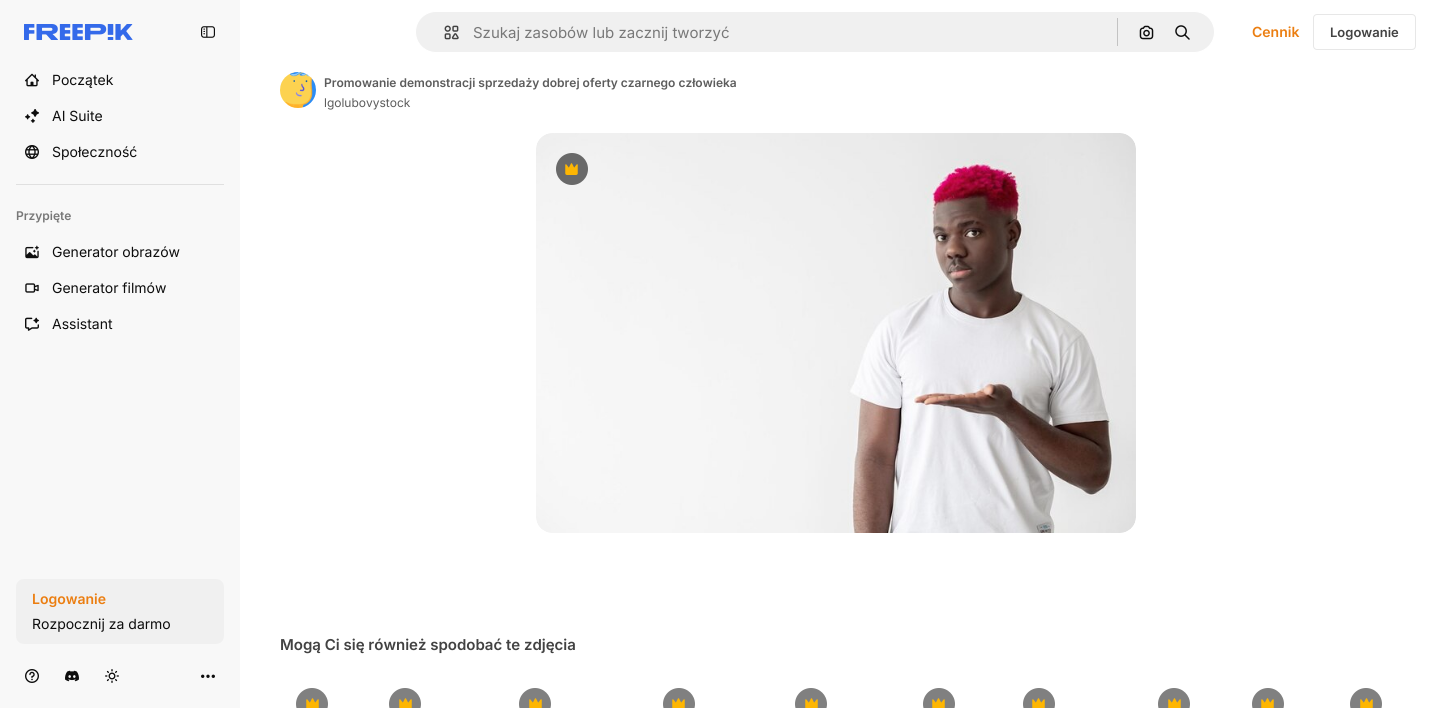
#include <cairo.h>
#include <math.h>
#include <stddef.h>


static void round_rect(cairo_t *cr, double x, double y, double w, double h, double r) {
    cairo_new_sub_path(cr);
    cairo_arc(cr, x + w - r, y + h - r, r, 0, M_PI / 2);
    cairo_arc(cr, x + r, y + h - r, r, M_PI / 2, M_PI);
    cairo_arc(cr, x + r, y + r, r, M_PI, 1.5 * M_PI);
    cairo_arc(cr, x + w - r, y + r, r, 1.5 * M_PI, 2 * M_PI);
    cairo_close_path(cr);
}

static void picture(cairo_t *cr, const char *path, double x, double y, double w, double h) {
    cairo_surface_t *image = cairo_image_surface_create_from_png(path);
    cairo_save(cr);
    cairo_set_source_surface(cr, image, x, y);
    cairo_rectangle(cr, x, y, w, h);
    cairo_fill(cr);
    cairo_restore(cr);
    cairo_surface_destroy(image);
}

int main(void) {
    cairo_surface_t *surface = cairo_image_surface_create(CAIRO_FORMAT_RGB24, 1432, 708);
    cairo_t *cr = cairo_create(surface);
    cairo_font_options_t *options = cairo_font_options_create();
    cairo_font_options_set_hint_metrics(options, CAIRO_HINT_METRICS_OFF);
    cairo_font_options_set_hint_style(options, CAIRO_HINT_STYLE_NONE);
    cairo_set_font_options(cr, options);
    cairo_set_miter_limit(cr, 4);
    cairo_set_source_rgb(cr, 1, 1, 1);
    cairo_paint(cr);
    cairo_set_source_rgb(cr, 0.969, 0.969, 0.969);
    cairo_rectangle(cr, 0, 0, 240, 708);
    cairo_fill(cr);
    picture(cr, "img1.png", 24, 24, 109, 16);
    picture(cr, "img2.png", 201, 26, 14, 12);
    picture(cr, "img3.png", 25, 73, 14, 14);
    cairo_select_font_face(cr, "Inter", CAIRO_FONT_SLANT_NORMAL, CAIRO_FONT_WEIGHT_NORMAL);
    cairo_set_font_size(cr, 14);
    cairo_set_source_rgb(cr, 0.051, 0.051, 0.051);
    cairo_move_to(cr, 52, 85);
    cairo_show_text(cr, "Początek");
    picture(cr, "img4.png", 25, 109, 14, 14);
    cairo_move_to(cr, 52, 121);
    cairo_show_text(cr, "AI Suite");
    picture(cr, "img5.png", 25, 145, 14, 14);
    cairo_move_to(cr, 52, 157);
    cairo_show_text(cr, "Społeczność");
    cairo_set_source_rgb(cr, 0.878, 0.878, 0.878);
    cairo_rectangle(cr, 16, 184, 208, 1);
    cairo_fill(cr);
    cairo_select_font_face(cr, "Inter SemiBold", CAIRO_FONT_SLANT_NORMAL, CAIRO_FONT_WEIGHT_NORMAL);
    cairo_set_font_size(cr, 12);
    cairo_set_source_rgb(cr, 0.471, 0.471, 0.471);
    cairo_move_to(cr, 16, 220);
    cairo_show_text(cr, "Przypięte");
    picture(cr, "img6.png", 25, 245, 14, 14);
    cairo_select_font_face(cr, "Inter", CAIRO_FONT_SLANT_NORMAL, CAIRO_FONT_WEIGHT_NORMAL);
    cairo_set_font_size(cr, 14);
    cairo_set_source_rgb(cr, 0.051, 0.051, 0.051);
    cairo_move_to(cr, 52, 257);
    cairo_show_text(cr, "Generator obrazów");
    picture(cr, "img7.png", 25, 283, 14, 10);
    cairo_move_to(cr, 52, 293);
    cairo_show_text(cr, "Generator filmów");
    picture(cr, "img8.png", 25, 317, 14, 14);
    cairo_move_to(cr, 52, 329);
    cairo_show_text(cr, "Assistant");
    cairo_set_source_rgb(cr, 0.941, 0.941, 0.941);
    round_rect(cr, 16, 579, 208, 65, 8);
    cairo_fill(cr);
    cairo_select_font_face(cr, "Inter SemiBold", CAIRO_FONT_SLANT_NORMAL, CAIRO_FONT_WEIGHT_NORMAL);
    cairo_set_source_rgb(cr, 0.918, 0.494, 0.067);
    cairo_move_to(cr, 32, 604);
    cairo_show_text(cr, "Logowanie");
    cairo_select_font_face(cr, "Inter", CAIRO_FONT_SLANT_NORMAL, CAIRO_FONT_WEIGHT_NORMAL);
    cairo_set_source_rgb(cr, 0.051, 0.051, 0.051);
    cairo_move_to(cr, 32, 629);
    cairo_show_text(cr, "Rozpocznij za darmo");
    picture(cr, "img9.png", 25, 669, 14, 14);
    picture(cr, "img10.png", 65, 670, 14, 12);
    picture(cr, "img11.png", 105, 669, 14, 14);
    picture(cr, "img12.png", 201, 674, 14, 4);
    cairo_set_source_rgb(cr, 0.941, 0.941, 0.941);
    round_rect(cr, 415.5, 11.5, 799, 41, 20.5);
    cairo_fill_preserve(cr);
    cairo_set_source_rgb(cr, 1, 1, 1);
    cairo_set_line_width(cr, 1);
    cairo_stroke(cr);
    picture(cr, "img13.png", 444, 25, 15, 15);
    cairo_set_font_size(cr, 15);
    cairo_set_source_rgb(cr, 0.471, 0.471, 0.471);
    cairo_move_to(cr, 473, 38);
    cairo_show_text(cr, "Szukaj zasobów lub zacznij tworzyć");
    cairo_set_source_rgb(cr, 0.765, 0.765, 0.765);
    cairo_rectangle(cr, 1117, 18, 1, 28);
    cairo_fill(cr);
    picture(cr, "img14.png", 1139, 25, 15, 15);
    picture(cr, "img15.png", 1175, 25, 15, 15);
    cairo_select_font_face(cr, "Inter SemiBold", CAIRO_FONT_SLANT_NORMAL, CAIRO_FONT_WEIGHT_NORMAL);
    cairo_set_font_size(cr, 14);
    cairo_set_source_rgb(cr, 0.918, 0.494, 0.067);
    cairo_move_to(cr, 1252, 37);
    cairo_show_text(cr, "Cennik");
    round_rect(cr, 1313.5, 14.5, 102, 35, 3.5);
    cairo_set_source_rgb(cr, 0.906, 0.906, 0.906);
    cairo_stroke(cr);
    cairo_set_font_size(cr, 13);
    cairo_set_source_rgb(cr, 0.259, 0.259, 0.259);
    cairo_move_to(cr, 1330, 37);
    cairo_show_text(cr, "Logowanie");
    picture(cr, "img16.png", 280, 72, 36, 36);
    cairo_set_font_size(cr, 12);
    cairo_set_source_rgb(cr, 0.361, 0.361, 0.361);
    cairo_move_to(cr, 324, 87);
    cairo_show_text(cr, "Promowanie demonstracji sprzedaży dobrej oferty czarnego człowieka");
    cairo_select_font_face(cr, "Inter", CAIRO_FONT_SLANT_NORMAL, CAIRO_FONT_WEIGHT_NORMAL);
    cairo_move_to(cr, 324, 107);
    cairo_show_text(cr, "lgolubovystock");
    picture(cr, "img17.png", 536, 133, 600, 400);
    cairo_set_source_rgb(cr, 0.412, 0.412, 0.412);
    cairo_arc(cr, 572, 169, 16, 0, 2 * M_PI);
    cairo_fill(cr);
    picture(cr, "img18.png", 565, 163, 13, 12);
    cairo_select_font_face(cr, "Inter SemiBold", CAIRO_FONT_SLANT_NORMAL, CAIRO_FONT_WEIGHT_NORMAL);
    cairo_set_font_size(cr, 15);
    cairo_set_source_rgb(cr, 0.259, 0.259, 0.259);
    cairo_move_to(cr, 280, 650);
    cairo_show_text(cr, "Mogą Ci się również spodobać te zdjęcia");
    cairo_set_source_rgb(cr, 0.502, 0.502, 0.502);
    cairo_new_path(cr);
    cairo_arc(cr, 312, 704, 16, 0, 2 * M_PI);
    cairo_fill(cr);
    picture(cr, "img19.png", 306, 698, 13, 10);
    cairo_arc(cr, 405, 704, 16, 0, 2 * M_PI);
    cairo_fill(cr);
    picture(cr, "img19.png", 399, 698, 13, 10);
    cairo_arc(cr, 535, 704, 16, 0, 2 * M_PI);
    cairo_fill(cr);
    picture(cr, "img19.png", 529, 698, 13, 10);
    cairo_arc(cr, 679, 704, 16, 0, 2 * M_PI);
    cairo_fill(cr);
    picture(cr, "img19.png", 672, 698, 13, 10);
    cairo_arc(cr, 811, 704, 16, 0, 2 * M_PI);
    cairo_fill(cr);
    picture(cr, "img19.png", 805, 698, 13, 10);
    cairo_arc(cr, 939, 704, 16, 0, 2 * M_PI);
    cairo_fill(cr);
    picture(cr, "img19.png", 932, 698, 13, 10);
    cairo_arc(cr, 1039, 704, 16, 0, 2 * M_PI);
    cairo_fill(cr);
    picture(cr, "img19.png", 1032, 698, 13, 10);
    cairo_arc(cr, 1174, 704, 16, 0, 2 * M_PI);
    cairo_fill(cr);
    picture(cr, "img19.png", 1168, 698, 13, 10);
    cairo_arc(cr, 1268, 704, 16, 0, 2 * M_PI);
    cairo_fill(cr);
    picture(cr, "img19.png", 1261, 698, 13, 10);
    cairo_arc(cr, 1366, 704, 16, 0, 2 * M_PI);
    cairo_fill(cr);
    picture(cr, "img19.png", 1360, 698, 13, 10);
    cairo_surface_write_to_png(surface, "page.png");
    cairo_font_options_destroy(options);
    cairo_destroy(cr);
    cairo_surface_destroy(surface);
    return 0;
}
